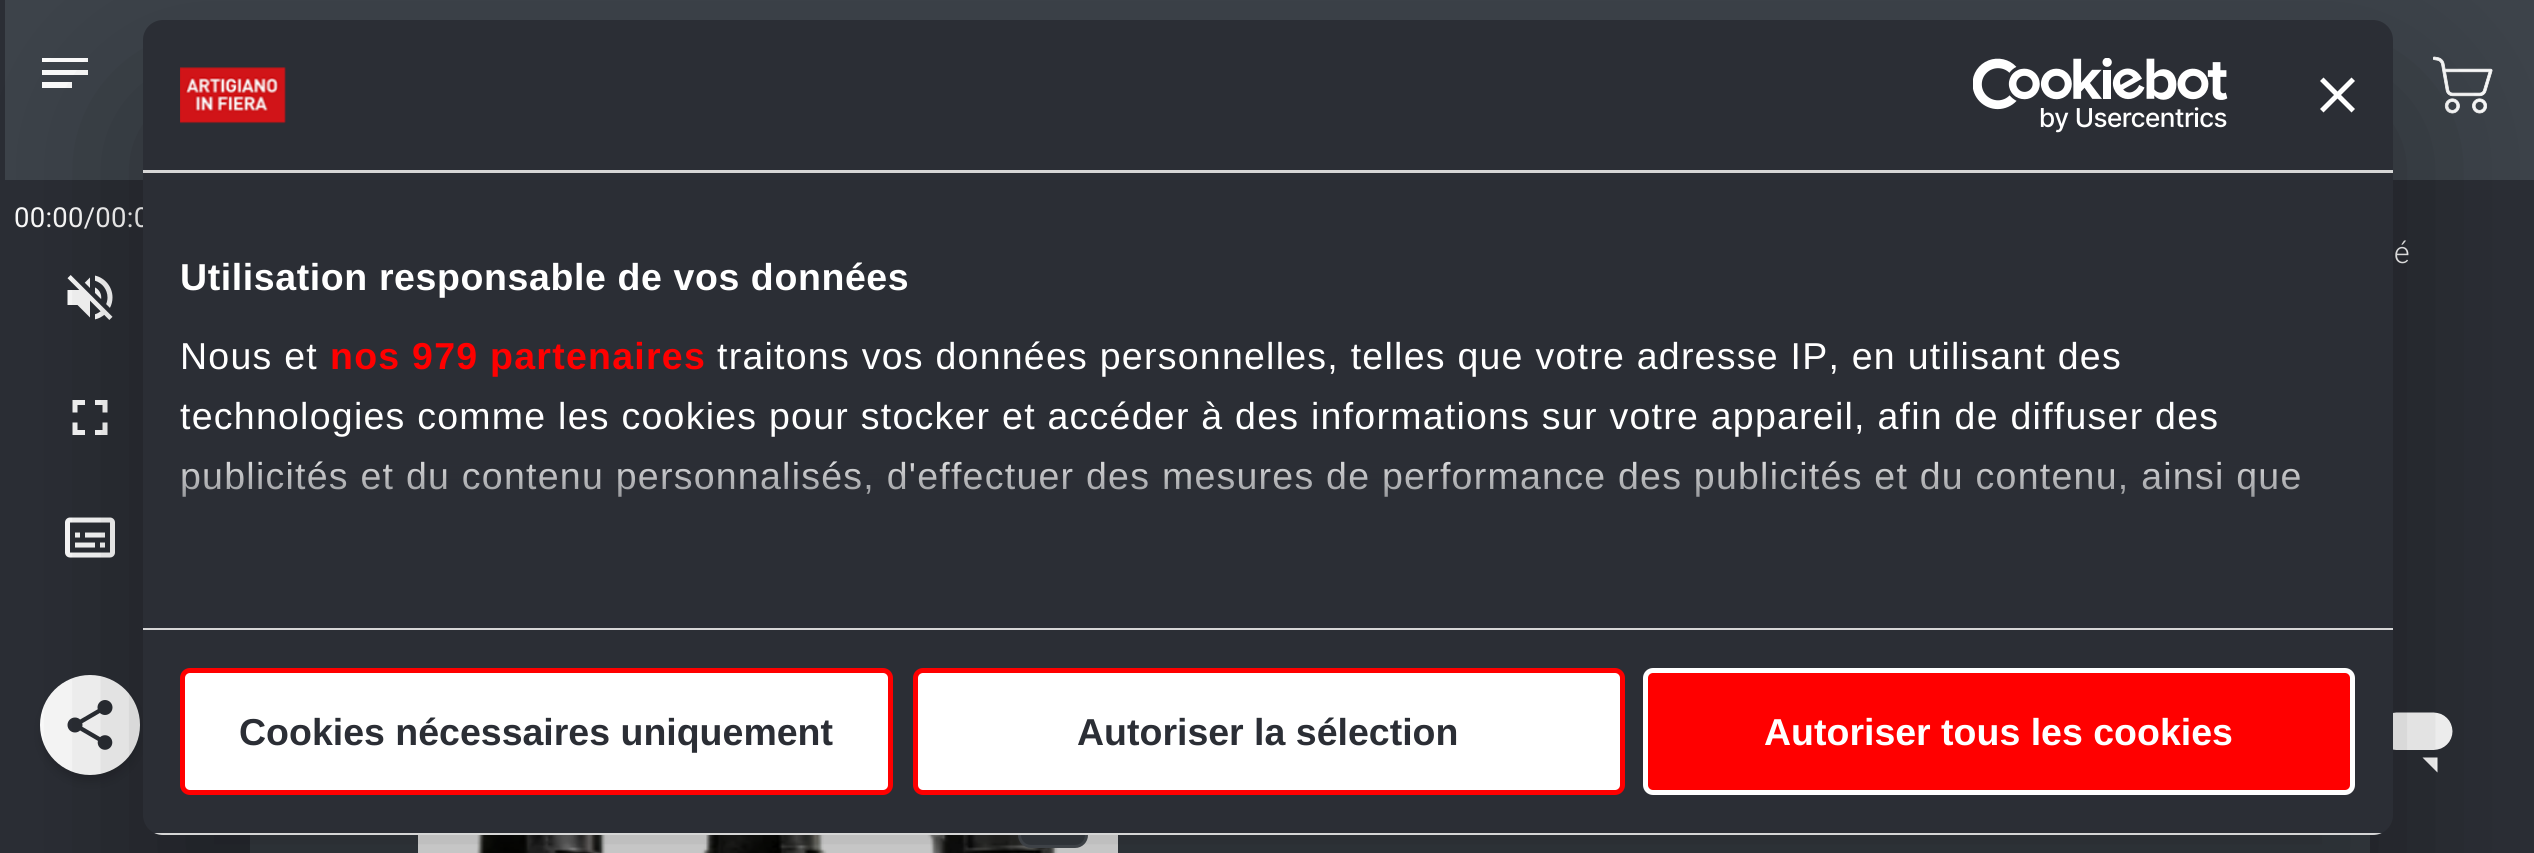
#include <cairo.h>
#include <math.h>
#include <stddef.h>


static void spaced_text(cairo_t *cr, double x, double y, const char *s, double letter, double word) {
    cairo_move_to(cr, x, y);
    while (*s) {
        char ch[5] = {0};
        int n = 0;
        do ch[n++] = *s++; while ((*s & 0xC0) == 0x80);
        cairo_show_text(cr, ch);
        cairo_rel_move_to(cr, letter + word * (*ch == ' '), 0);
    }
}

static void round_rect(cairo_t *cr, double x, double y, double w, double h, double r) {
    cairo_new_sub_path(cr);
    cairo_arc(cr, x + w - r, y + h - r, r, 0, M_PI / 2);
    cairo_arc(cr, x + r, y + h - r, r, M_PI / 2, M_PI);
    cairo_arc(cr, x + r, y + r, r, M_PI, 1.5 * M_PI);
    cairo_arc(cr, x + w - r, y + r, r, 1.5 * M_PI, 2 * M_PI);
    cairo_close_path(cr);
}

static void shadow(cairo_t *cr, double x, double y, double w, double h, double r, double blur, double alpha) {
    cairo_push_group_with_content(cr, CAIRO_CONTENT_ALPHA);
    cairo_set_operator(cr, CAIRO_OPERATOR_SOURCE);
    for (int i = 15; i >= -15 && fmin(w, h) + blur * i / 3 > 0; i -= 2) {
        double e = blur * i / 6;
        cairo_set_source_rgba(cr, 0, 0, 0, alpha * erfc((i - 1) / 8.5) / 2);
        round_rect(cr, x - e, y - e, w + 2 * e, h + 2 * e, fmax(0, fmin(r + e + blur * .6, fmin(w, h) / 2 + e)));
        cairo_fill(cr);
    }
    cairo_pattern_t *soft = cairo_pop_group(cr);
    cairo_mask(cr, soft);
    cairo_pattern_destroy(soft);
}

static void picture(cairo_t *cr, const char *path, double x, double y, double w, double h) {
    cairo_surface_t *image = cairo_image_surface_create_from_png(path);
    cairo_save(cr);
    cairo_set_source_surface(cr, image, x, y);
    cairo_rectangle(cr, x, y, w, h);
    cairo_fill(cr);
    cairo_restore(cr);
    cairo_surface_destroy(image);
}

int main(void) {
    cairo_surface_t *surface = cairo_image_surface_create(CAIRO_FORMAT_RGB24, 2534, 853);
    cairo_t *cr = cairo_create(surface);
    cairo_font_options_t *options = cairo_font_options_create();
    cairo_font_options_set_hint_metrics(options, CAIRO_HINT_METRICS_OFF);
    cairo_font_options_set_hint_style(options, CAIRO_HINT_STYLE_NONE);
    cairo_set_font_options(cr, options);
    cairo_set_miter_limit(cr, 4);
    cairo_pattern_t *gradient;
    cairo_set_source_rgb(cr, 0.169, 0.18, 0.208);
    cairo_paint(cr);
    cairo_select_font_face(cr, "Roboto", CAIRO_FONT_SLANT_NORMAL, CAIRO_FONT_WEIGHT_NORMAL);
    cairo_set_font_size(cr, 27.5);
    cairo_set_source_rgb(cr, 1, 1, 1);
    spaced_text(cr, 14, 227, "00:00/00:0", 0.25, 0);
    picture(cr, "img1.png", 67, 275, 46, 45);
    picture(cr, "img2.png", 72, 400, 36, 35);
    picture(cr, "img3.png", 65, 517, 50, 41);
    cairo_set_source_rgb(cr, 0, 0, 0);
    shadow(cr, 43, 685, 95, 95, 47.5, 6, 0.2);
    cairo_set_source_rgb(cr, 1, 1, 1);
    cairo_arc(cr, 90, 725, 50, 0, 2 * M_PI);
    cairo_fill(cr);
    picture(cr, "img4.png", 67, 700, 46, 50);
    cairo_set_source_rgb(cr, 0.239, 0.263, 0.29);
    cairo_rectangle(cr, 5, 0, 2529, 180);
    cairo_fill(cr);
    cairo_set_source_rgb(cr, 1, 1, 1);
    cairo_new_path(cr);
    cairo_move_to(cr, 42, 88);
    cairo_line_to(cr, 72, 88);
    cairo_line_to(cr, 72, 82);
    cairo_line_to(cr, 42, 82);
    cairo_close_path(cr);
    cairo_move_to(cr, 42, 58);
    cairo_line_to(cr, 42, 62);
    cairo_line_to(cr, 88, 62);
    cairo_line_to(cr, 88, 58);
    cairo_close_path(cr);
    cairo_move_to(cr, 42, 75);
    cairo_line_to(cr, 88, 75);
    cairo_line_to(cr, 88, 70);
    cairo_line_to(cr, 42, 70);
    cairo_close_path(cr);
    cairo_fill(cr);
    picture(cr, "img5.png", 2433, 56, 60, 58);
    cairo_select_font_face(cr, "Roboto Light", CAIRO_FONT_SLANT_NORMAL, CAIRO_FONT_WEIGHT_NORMAL);
    cairo_set_font_size(cr, 30);
    cairo_move_to(cr, 2394, 263);
    cairo_show_text(cr, "é");
    cairo_set_source_rgb(cr, 0.224, 0.247, 0.271);
    cairo_rectangle(cr, 250, 835, 2120, 18);
    cairo_fill(cr);
    cairo_set_source_rgb(cr, 1, 1, 1);
    cairo_rectangle(cr, 418, 835, 700, 18);
    cairo_fill(cr);
    picture(cr, "img6.png", 476, 835, 583, 18);
    cairo_set_source_rgb(cr, 0.239, 0.263, 0.29);
    round_rect(cr, 1018, 778, 70, 70, 13);
    cairo_fill(cr);
    round_rect(cr, 1019.5, 779.5, 67, 67, 11.5);
    cairo_set_source_rgba(cr, 1, 1, 1, 0.1);
    cairo_set_line_width(cr, 3);
    cairo_stroke(cr);
    picture(cr, "img9.png", 2393, 655, 60, 160);
    cairo_set_source_rgb(cr, 0, 0, 0);
    shadow(cr, 143, 100, 2250, 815, 20, 85, 0.3);
    cairo_set_source_rgb(cr, 0.169, 0.18, 0.208);
    round_rect(cr, 143, 20, 2250, 815, 20);
    cairo_fill(cr);
    cairo_set_source_rgb(cr, 0.839, 0.839, 0.839);
    cairo_rectangle(cr, 143, 170, 2250, 3);
    cairo_fill(cr);
    picture(cr, "img7.png", 180, 67, 106, 57);
    picture(cr, "img8.png", 1973, 58, 255, 75);
    cairo_set_source_rgb(cr, 1, 1, 1);
    cairo_new_path(cr);
    cairo_move_to(cr, 2355, 81);
    cairo_line_to(cr, 2351.5, 77.5);
    cairo_line_to(cr, 2337.5, 91.5);
    cairo_line_to(cr, 2323.5, 77.5);
    cairo_line_to(cr, 2320, 81);
    cairo_line_to(cr, 2334, 95);
    cairo_line_to(cr, 2320, 109);
    cairo_line_to(cr, 2323.5, 112.5);
    cairo_line_to(cr, 2337.5, 98.5);
    cairo_line_to(cr, 2351.5, 112.5);
    cairo_line_to(cr, 2355, 109);
    cairo_line_to(cr, 2341, 95);
    cairo_close_path(cr);
    cairo_fill(cr);
    cairo_set_source_rgb(cr, 0.839, 0.839, 0.839);
    cairo_rectangle(cr, 143, 628, 2250, 2);
    cairo_fill(cr);
    cairo_select_font_face(cr, "Liberation Sans", CAIRO_FONT_SLANT_NORMAL, CAIRO_FONT_WEIGHT_BOLD);
    cairo_set_font_size(cr, 37.5);
    cairo_set_source_rgb(cr, 1, 1, 1);
    spaced_text(cr, 180, 290, "Utilisation responsable de vos données", 0.6, 0);
    cairo_select_font_face(cr, "Liberation Sans", CAIRO_FONT_SLANT_NORMAL, CAIRO_FONT_WEIGHT_NORMAL);
    spaced_text(cr, 180, 369, "Nous et", 1.25, 0);
    cairo_select_font_face(cr, "Liberation Sans", CAIRO_FONT_SLANT_NORMAL, CAIRO_FONT_WEIGHT_BOLD);
    cairo_set_source_rgb(cr, 1, 0, 0);
    spaced_text(cr, 330, 369, "nos 979 partenaires", 1.25, 0);
    cairo_select_font_face(cr, "Liberation Sans", CAIRO_FONT_SLANT_NORMAL, CAIRO_FONT_WEIGHT_NORMAL);
    cairo_set_source_rgb(cr, 1, 1, 1);
    spaced_text(cr, 717, 369, "traitons vos données personnelles, telles que votre adresse IP, en utilisant des", 1.25, 0);
    spaced_text(cr, 180, 429, "technologies comme les cookies pour stocker et accéder à des informations sur votre appareil, afin de diffuser des", 1.25, 0);
    spaced_text(cr, 180, 489, "publicités et du contenu personnalisés, d'effectuer des mesures de performance des publicités et du contenu, ainsi que", 1.25, 0);
    gradient = cairo_pattern_create_linear(1251, 628, 1251, 440);
    cairo_pattern_add_color_stop_rgba(gradient, 0, 0.169, 0.18, 0.208, 1);
    cairo_pattern_add_color_stop_rgba(gradient, 0.5, 0.169, 0.18, 0.208, 0.8);
    cairo_pattern_add_color_stop_rgba(gradient, 1, 0.169, 0.18, 0.208, 0);
    cairo_set_source(cr, gradient);
    cairo_pattern_destroy(gradient);
    cairo_rectangle(cr, 182, 461, 2118, 36);
    cairo_fill(cr);
    cairo_save(cr);
    round_rect(cr, 143, 20, 2250, 815, 20);
    cairo_clip(cr);
    cairo_set_source_rgb(cr, 0.839, 0.839, 0.839);
    cairo_rectangle(cr, 154, 833, 2228, 2);
    cairo_fill(cr);
    cairo_restore(cr);
    cairo_set_source_rgb(cr, 1, 1, 1);
    round_rect(cr, 182.5, 670.5, 708, 122, 7.5);
    cairo_fill_preserve(cr);
    cairo_set_source_rgb(cr, 1, 0, 0);
    cairo_set_line_width(cr, 5);
    cairo_stroke(cr);
    cairo_select_font_face(cr, "Liberation Sans", CAIRO_FONT_SLANT_NORMAL, CAIRO_FONT_WEIGHT_BOLD);
    cairo_set_source_rgb(cr, 0.169, 0.18, 0.208);
    cairo_move_to(cr, 239, 745);
    cairo_show_text(cr, "Cookies nécessaires uniquement");
    cairo_set_source_rgb(cr, 1, 1, 1);
    round_rect(cr, 915.5, 670.5, 707, 122, 7.5);
    cairo_fill_preserve(cr);
    cairo_set_source_rgb(cr, 1, 0, 0);
    cairo_stroke(cr);
    cairo_set_source_rgb(cr, 0.169, 0.18, 0.208);
    cairo_move_to(cr, 1077, 745);
    cairo_show_text(cr, "Autoriser la sélection");
    cairo_set_source_rgb(cr, 1, 0, 0);
    round_rect(cr, 1645.5, 670.5, 707, 122, 7.5);
    cairo_fill_preserve(cr);
    cairo_set_source_rgb(cr, 1, 1, 1);
    cairo_stroke(cr);
    cairo_move_to(cr, 1764, 745);
    cairo_show_text(cr, "Autoriser tous les cookies");
    cairo_surface_write_to_png(surface, "page.png");
    cairo_font_options_destroy(options);
    cairo_destroy(cr);
    cairo_surface_destroy(surface);
    return 0;
}
